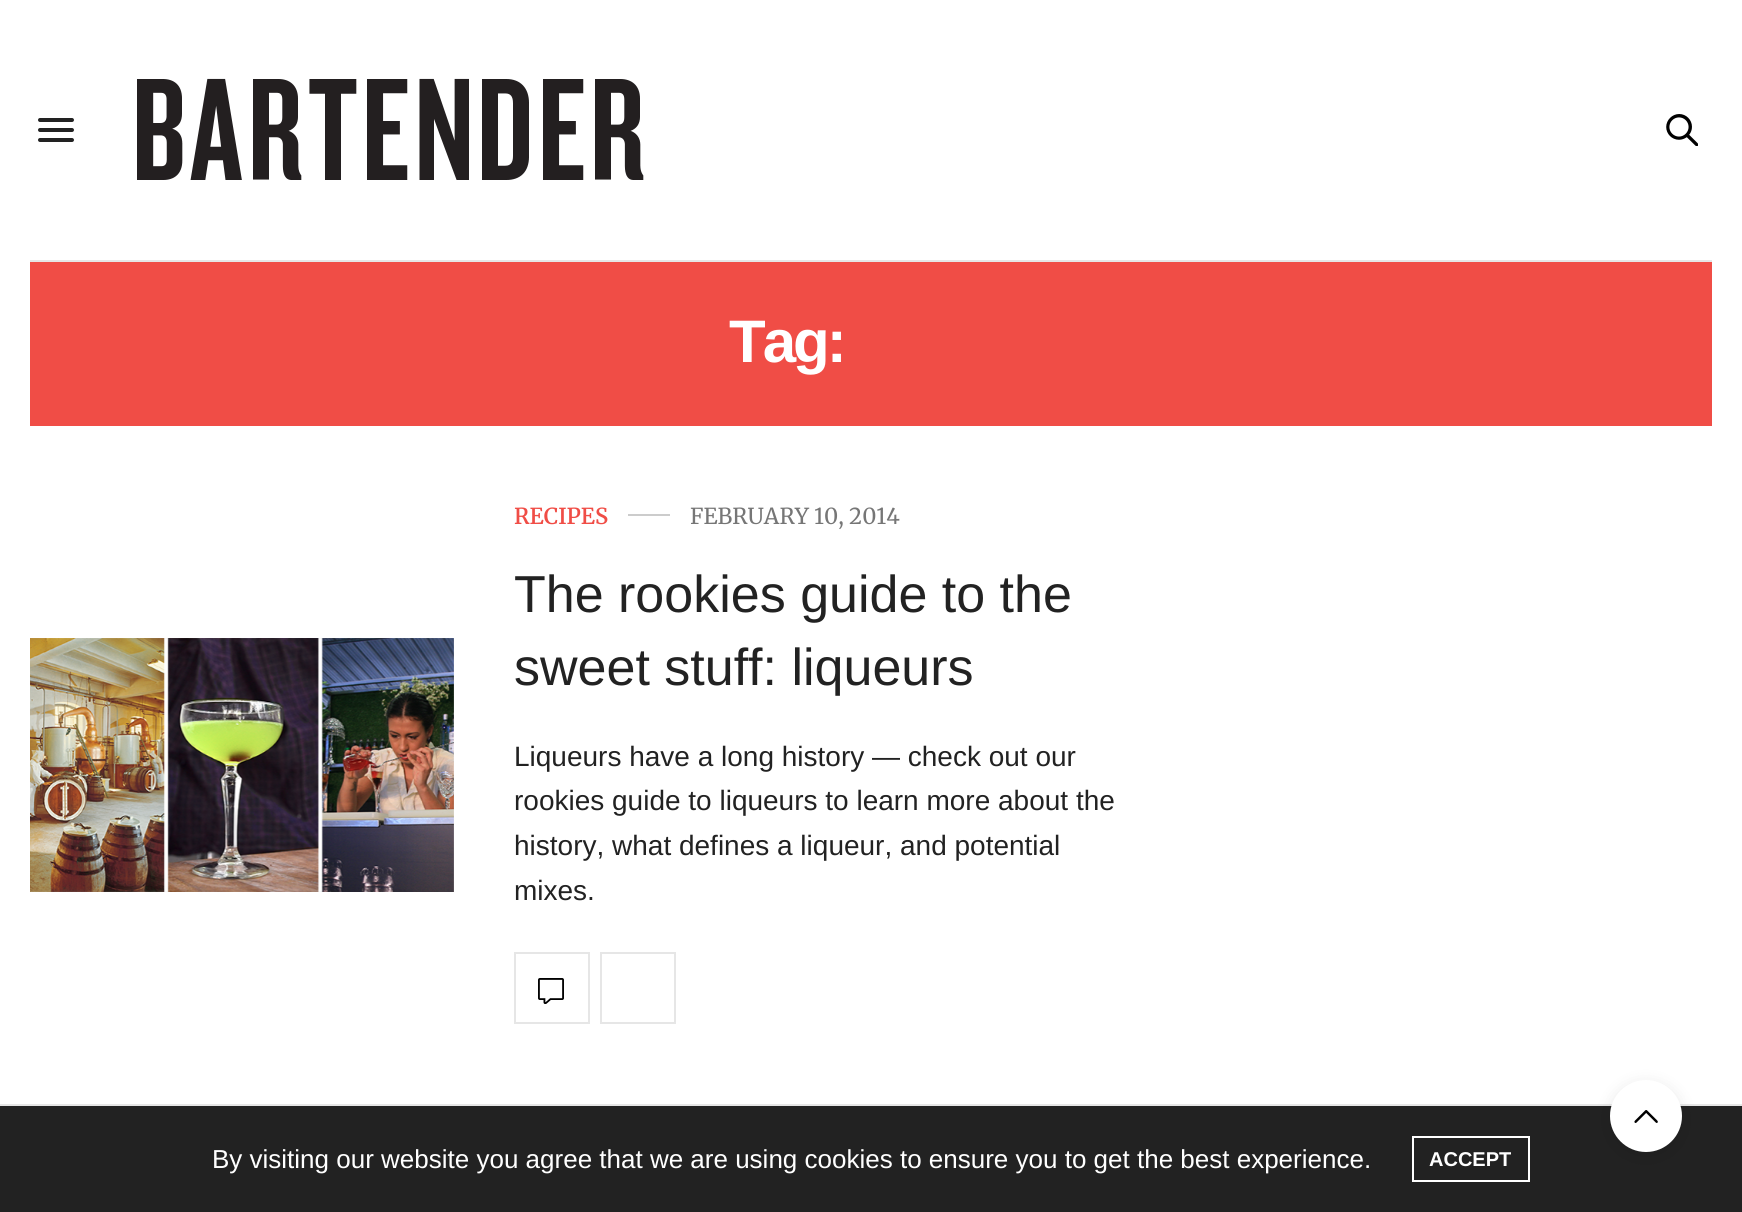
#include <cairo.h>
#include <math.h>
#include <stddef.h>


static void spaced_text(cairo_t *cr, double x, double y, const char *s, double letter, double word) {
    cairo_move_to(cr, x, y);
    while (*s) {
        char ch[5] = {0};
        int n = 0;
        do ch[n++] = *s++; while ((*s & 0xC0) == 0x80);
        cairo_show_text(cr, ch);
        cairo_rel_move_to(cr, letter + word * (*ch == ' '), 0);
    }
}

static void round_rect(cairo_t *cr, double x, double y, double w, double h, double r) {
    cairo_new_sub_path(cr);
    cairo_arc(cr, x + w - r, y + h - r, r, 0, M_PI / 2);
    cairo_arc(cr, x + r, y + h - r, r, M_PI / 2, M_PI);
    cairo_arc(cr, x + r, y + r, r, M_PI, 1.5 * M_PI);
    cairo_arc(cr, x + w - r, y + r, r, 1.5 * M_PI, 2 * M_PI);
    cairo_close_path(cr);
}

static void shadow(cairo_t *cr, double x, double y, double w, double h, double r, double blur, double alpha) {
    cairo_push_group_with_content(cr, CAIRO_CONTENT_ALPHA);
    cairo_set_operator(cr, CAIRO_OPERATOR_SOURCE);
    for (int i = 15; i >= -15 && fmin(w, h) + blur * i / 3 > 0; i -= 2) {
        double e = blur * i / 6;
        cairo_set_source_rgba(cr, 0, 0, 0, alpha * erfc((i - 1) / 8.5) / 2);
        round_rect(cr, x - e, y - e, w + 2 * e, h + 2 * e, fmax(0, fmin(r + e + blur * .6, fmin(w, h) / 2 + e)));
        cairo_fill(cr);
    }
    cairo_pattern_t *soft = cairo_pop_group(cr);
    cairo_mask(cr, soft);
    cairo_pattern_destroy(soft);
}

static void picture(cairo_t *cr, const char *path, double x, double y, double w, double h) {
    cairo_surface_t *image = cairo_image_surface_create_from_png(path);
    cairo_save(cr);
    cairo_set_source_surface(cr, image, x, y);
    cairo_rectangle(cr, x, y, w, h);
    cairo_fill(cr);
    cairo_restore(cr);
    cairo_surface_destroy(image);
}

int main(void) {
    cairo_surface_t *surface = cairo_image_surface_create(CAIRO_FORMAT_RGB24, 1742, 1212);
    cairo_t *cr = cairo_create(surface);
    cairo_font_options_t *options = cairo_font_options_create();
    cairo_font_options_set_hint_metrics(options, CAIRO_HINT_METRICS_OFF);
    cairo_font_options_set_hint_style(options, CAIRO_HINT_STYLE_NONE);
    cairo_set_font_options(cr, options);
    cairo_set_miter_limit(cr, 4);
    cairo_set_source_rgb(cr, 1, 1, 1);
    cairo_paint(cr);
    cairo_set_source_rgb(cr, 0.902, 0.902, 0.902);
    cairo_rectangle(cr, 30, 260, 1682, 2);
    cairo_fill(cr);
    cairo_set_source_rgb(cr, 0.133, 0.133, 0.133);
    round_rect(cr, 38, 118, 36, 4, 2);
    cairo_fill(cr);
    round_rect(cr, 38, 128, 36, 4, 2);
    cairo_fill(cr);
    round_rect(cr, 38, 138, 36, 4, 2);
    cairo_fill(cr);
    picture(cr, "img1.png", 137, 78, 507, 102);
    picture(cr, "img2.png", 1666, 114, 32, 32);
    cairo_set_source_rgb(cr, 0.941, 0.302, 0.275);
    cairo_rectangle(cr, 30, 262, 1682, 164);
    cairo_fill(cr);
    cairo_select_font_face(cr, "Liberation Sans", CAIRO_FONT_SLANT_NORMAL, CAIRO_FONT_WEIGHT_BOLD);
    cairo_set_font_size(cr, 60);
    cairo_set_source_rgb(cr, 1, 1, 1);
    spaced_text(cr, 729, 362, "Tag:", -3, 0);
    picture(cr, "img3.png", 30, 638, 424, 254);
    cairo_select_font_face(cr, "Merriweather SemiBold", CAIRO_FONT_SLANT_NORMAL, CAIRO_FONT_WEIGHT_NORMAL);
    cairo_set_font_size(cr, 22);
    cairo_set_source_rgb(cr, 0.941, 0.302, 0.275);
    cairo_move_to(cr, 514, 524);
    cairo_show_text(cr, "RECIPES");
    cairo_set_source_rgb(cr, 0.8, 0.8, 0.8);
    cairo_rectangle(cr, 628, 514, 42, 2);
    cairo_fill(cr);
    cairo_select_font_face(cr, "Merriweather", CAIRO_FONT_SLANT_NORMAL, CAIRO_FONT_WEIGHT_NORMAL);
    cairo_set_source_rgb(cr, 0.463, 0.463, 0.463);
    cairo_move_to(cr, 690, 524);
    cairo_show_text(cr, "FEBRUARY 10, 2014");
    cairo_select_font_face(cr, "Liberation Sans", CAIRO_FONT_SLANT_NORMAL, CAIRO_FONT_WEIGHT_NORMAL);
    cairo_set_font_size(cr, 52);
    cairo_set_source_rgb(cr, 0.133, 0.133, 0.133);
    cairo_move_to(cr, 514, 612);
    cairo_show_text(cr, "The rookies guide to the");
    cairo_move_to(cr, 514, 685);
    cairo_show_text(cr, "sweet stuff: liqueurs");
    cairo_set_font_size(cr, 28);
    cairo_move_to(cr, 514, 766);
    cairo_show_text(cr, "Liqueurs have a long history — check out our");
    cairo_move_to(cr, 514, 810);
    cairo_show_text(cr, "rookies guide to liqueurs to learn more about the");
    cairo_move_to(cr, 514, 855);
    cairo_show_text(cr, "history, what defines a liqueur, and potential");
    cairo_move_to(cr, 514, 900);
    cairo_show_text(cr, "mixes.");
    cairo_rectangle(cr, 515, 953, 74, 70);
    cairo_set_source_rgb(cr, 0.902, 0.902, 0.902);
    cairo_stroke(cr);
    picture(cr, "img4.png", 538, 978, 26, 26);
    cairo_rectangle(cr, 601, 953, 74, 70);
    cairo_stroke(cr);
    cairo_rectangle(cr, 0, 1104, 1742, 2);
    cairo_fill(cr);
    cairo_set_source_rgb(cr, 0.133, 0.133, 0.133);
    cairo_rectangle(cr, 0, 1106, 1742, 106);
    cairo_fill(cr);
    cairo_set_font_size(cr, 26);
    cairo_set_source_rgb(cr, 1, 1, 1);
    cairo_move_to(cr, 212, 1168);
    cairo_show_text(cr, "By visiting our website you agree that we are using cookies to ensure you to get the best experience.");
    cairo_rectangle(cr, 1413, 1137, 116, 44);
    cairo_stroke(cr);
    cairo_select_font_face(cr, "Liberation Sans", CAIRO_FONT_SLANT_NORMAL, CAIRO_FONT_WEIGHT_BOLD);
    cairo_set_font_size(cr, 20);
    cairo_move_to(cr, 1429, 1166);
    cairo_show_text(cr, "ACCEPT");
    cairo_set_source_rgb(cr, 0, 0, 0);
    shadow(cr, 1610, 1084, 72, 72, 36, 8, 0.1);
    cairo_set_source_rgb(cr, 1, 1, 1);
    cairo_arc(cr, 1646, 1116, 36, 0, 2 * M_PI);
    cairo_fill(cr);
    picture(cr, "img5.png", 1634, 1110, 24, 13);
    cairo_surface_write_to_png(surface, "page.png");
    cairo_font_options_destroy(options);
    cairo_destroy(cr);
    cairo_surface_destroy(surface);
    return 0;
}
